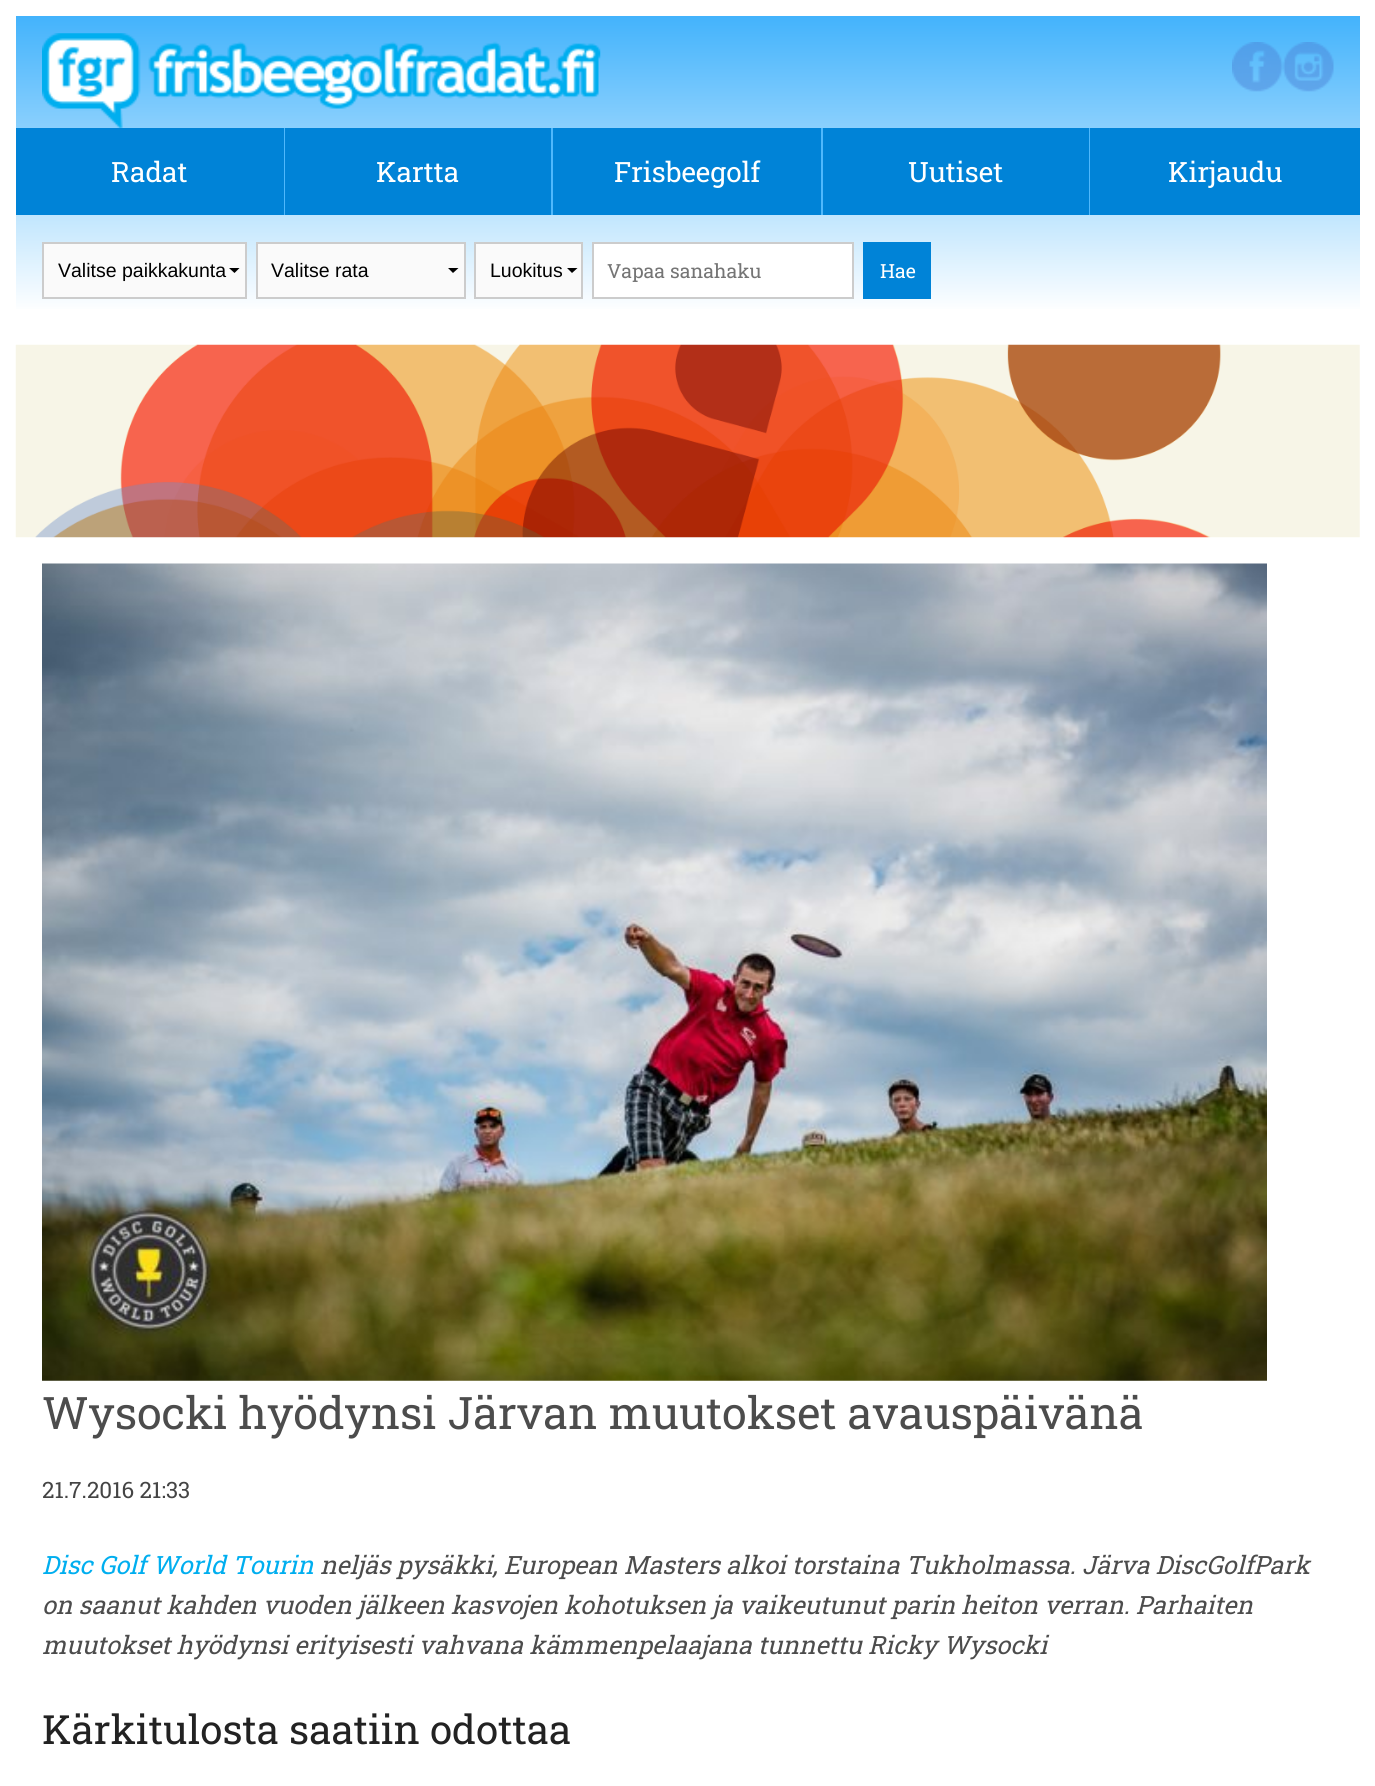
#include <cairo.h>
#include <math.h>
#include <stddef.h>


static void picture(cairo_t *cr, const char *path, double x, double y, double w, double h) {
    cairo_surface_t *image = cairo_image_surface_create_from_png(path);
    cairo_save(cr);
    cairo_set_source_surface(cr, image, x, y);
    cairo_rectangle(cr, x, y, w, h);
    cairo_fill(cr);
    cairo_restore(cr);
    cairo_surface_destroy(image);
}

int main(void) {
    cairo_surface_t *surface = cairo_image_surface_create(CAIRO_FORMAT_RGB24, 1375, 1786);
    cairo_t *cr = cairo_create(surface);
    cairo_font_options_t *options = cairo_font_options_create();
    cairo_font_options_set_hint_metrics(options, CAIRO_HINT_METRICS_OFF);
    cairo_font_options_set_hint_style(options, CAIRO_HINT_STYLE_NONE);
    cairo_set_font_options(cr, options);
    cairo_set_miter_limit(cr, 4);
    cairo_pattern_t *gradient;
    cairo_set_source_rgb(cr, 1, 1, 1);
    cairo_paint(cr);
    gradient = cairo_pattern_create_linear(688, 16, 688, 313);
    cairo_pattern_add_color_stop_rgba(gradient, 0, 0.263, 0.702, 0.988, 1);
    cairo_pattern_add_color_stop_rgba(gradient, 1, 1, 1, 1, 1);
    cairo_set_source(cr, gradient);
    cairo_pattern_destroy(gradient);
    cairo_rectangle(cr, 16, 16, 1344, 293);
    cairo_fill(cr);
    picture(cr, "img1.png", 42, 33, 559, 95);
    cairo_set_source_rgb(cr, 0, 0.514, 0.843);
    cairo_rectangle(cr, 16, 128, 268, 87);
    cairo_fill(cr);
    cairo_set_source_rgb(cr, 0.31, 0.722, 0.988);
    cairo_rectangle(cr, 284, 128, 1, 87);
    cairo_fill(cr);
    cairo_select_font_face(cr, "Roboto Slab", CAIRO_FONT_SLANT_NORMAL, CAIRO_FONT_WEIGHT_NORMAL);
    cairo_set_font_size(cr, 28);
    cairo_set_source_rgb(cr, 1, 1, 1);
    cairo_move_to(cr, 111, 182);
    cairo_show_text(cr, "Radat");
    cairo_set_source_rgb(cr, 0, 0.514, 0.843);
    cairo_rectangle(cr, 285, 128, 266, 87);
    cairo_fill(cr);
    cairo_set_source_rgb(cr, 0.31, 0.722, 0.988);
    cairo_rectangle(cr, 551, 128, 2, 87);
    cairo_fill(cr);
    cairo_set_source_rgb(cr, 1, 1, 1);
    cairo_move_to(cr, 376, 182);
    cairo_show_text(cr, "Kartta");
    cairo_set_source_rgb(cr, 0, 0.514, 0.843);
    cairo_rectangle(cr, 553, 128, 268, 87);
    cairo_fill(cr);
    cairo_set_source_rgb(cr, 0.31, 0.722, 0.988);
    cairo_rectangle(cr, 821, 128, 2, 87);
    cairo_fill(cr);
    cairo_set_source_rgb(cr, 1, 1, 1);
    cairo_move_to(cr, 614, 182);
    cairo_show_text(cr, "Frisbeegolf");
    cairo_set_source_rgb(cr, 0, 0.514, 0.843);
    cairo_rectangle(cr, 823, 128, 266, 87);
    cairo_fill(cr);
    cairo_set_source_rgb(cr, 0.31, 0.722, 0.988);
    cairo_rectangle(cr, 1089, 128, 1, 87);
    cairo_fill(cr);
    cairo_set_source_rgb(cr, 1, 1, 1);
    cairo_move_to(cr, 908, 182);
    cairo_show_text(cr, "Uutiset");
    cairo_set_source_rgb(cr, 0, 0.514, 0.843);
    cairo_rectangle(cr, 1090, 128, 270, 87);
    cairo_fill(cr);
    cairo_set_source_rgb(cr, 1, 1, 1);
    cairo_move_to(cr, 1168, 182);
    cairo_show_text(cr, "Kirjaudu");
    picture(cr, "img2.png", 1232, 42, 51, 50);
    picture(cr, "img3.png", 1283, 42, 51, 50);
    cairo_set_source_rgb(cr, 0.98, 0.98, 0.98);
    cairo_rectangle(cr, 44, 244, 201, 53);
    cairo_fill(cr);
    cairo_set_source_rgb(cr, 0, 0, 0);
    cairo_new_path(cr);
    cairo_move_to(cr, 239.5, 268);
    cairo_line_to(cr, 234.5, 273);
    cairo_line_to(cr, 229, 268);
    cairo_close_path(cr);
    cairo_fill(cr);
    cairo_rectangle(cr, 43, 243, 203, 55);
    cairo_set_source_rgb(cr, 0.8, 0.8, 0.8);
    cairo_stroke(cr);
    cairo_select_font_face(cr, "Liberation Sans", CAIRO_FONT_SLANT_NORMAL, CAIRO_FONT_WEIGHT_NORMAL);
    cairo_set_font_size(cr, 19.5);
    cairo_set_source_rgb(cr, 0, 0, 0);
    cairo_move_to(cr, 58, 277);
    cairo_show_text(cr, "Valitse paikkakunta");
    cairo_set_source_rgb(cr, 0.98, 0.98, 0.98);
    cairo_rectangle(cr, 258, 244, 206, 53);
    cairo_fill(cr);
    cairo_set_source_rgb(cr, 0, 0, 0);
    cairo_new_path(cr);
    cairo_move_to(cr, 458.5, 268);
    cairo_line_to(cr, 453, 273);
    cairo_line_to(cr, 448, 268);
    cairo_close_path(cr);
    cairo_fill(cr);
    cairo_rectangle(cr, 257, 243, 208, 55);
    cairo_set_source_rgb(cr, 0.8, 0.8, 0.8);
    cairo_stroke(cr);
    cairo_set_source_rgb(cr, 0, 0, 0);
    cairo_move_to(cr, 271, 277);
    cairo_show_text(cr, "Valitse rata");
    cairo_set_source_rgb(cr, 0.98, 0.98, 0.98);
    cairo_rectangle(cr, 476, 244, 105, 53);
    cairo_fill(cr);
    cairo_set_source_rgb(cr, 0, 0, 0);
    cairo_new_path(cr);
    cairo_move_to(cr, 577.5, 268);
    cairo_line_to(cr, 572, 273);
    cairo_line_to(cr, 567, 268);
    cairo_close_path(cr);
    cairo_fill(cr);
    cairo_rectangle(cr, 475, 243, 107, 55);
    cairo_set_source_rgb(cr, 0.8, 0.8, 0.8);
    cairo_stroke(cr);
    cairo_set_source_rgb(cr, 0, 0, 0);
    cairo_move_to(cr, 490, 277);
    cairo_show_text(cr, "Luokitus");
    cairo_set_source_rgb(cr, 1, 1, 1);
    cairo_rectangle(cr, 593, 243, 260, 55);
    cairo_fill_preserve(cr);
    cairo_set_source_rgb(cr, 0.8, 0.8, 0.8);
    cairo_stroke(cr);
    cairo_select_font_face(cr, "Roboto Slab", CAIRO_FONT_SLANT_NORMAL, CAIRO_FONT_WEIGHT_NORMAL);
    cairo_set_source_rgb(cr, 0.459, 0.459, 0.459);
    cairo_move_to(cr, 607, 278);
    cairo_show_text(cr, "Vapaa sanahaku");
    cairo_set_source_rgb(cr, 0, 0.514, 0.843);
    cairo_rectangle(cr, 863, 242, 68, 57);
    cairo_fill(cr);
    cairo_set_source_rgb(cr, 1, 1, 1);
    cairo_move_to(cr, 880, 278);
    cairo_show_text(cr, "Hae");
    picture(cr, "img4.png", 15, 344, 1345, 194);
    picture(cr, "img5.png", 42, 563, 1225, 818);
    cairo_set_font_size(cr, 44.8);
    cairo_set_source_rgb(cr, 0.298, 0.298, 0.298);
    cairo_move_to(cr, 42, 1429);
    cairo_show_text(cr, "Wysocki hyödynsi Järvan muutokset avauspäivänä");
    cairo_set_font_size(cr, 22.5);
    cairo_set_source_rgb(cr, 0.267, 0.267, 0.267);
    cairo_move_to(cr, 42, 1498);
    cairo_show_text(cr, "21.7.2016 21:33");
    cairo_select_font_face(cr, "Roboto Slab", CAIRO_FONT_SLANT_ITALIC, CAIRO_FONT_WEIGHT_NORMAL);
    cairo_set_font_size(cr, 25.2);
    cairo_set_source_rgb(cr, 0, 0.682, 0.937);
    cairo_move_to(cr, 42, 1574);
    cairo_show_text(cr, "Disc Golf World Tourin");
    cairo_set_source_rgb(cr, 0.298, 0.298, 0.298);
    cairo_move_to(cr, 320, 1574);
    cairo_show_text(cr, "neljäs pysäkki, European Masters alkoi torstaina Tukholmassa. Järva DiscGolfPark");
    cairo_move_to(cr, 42, 1614);
    cairo_show_text(cr, "on saanut kahden vuoden jälkeen kasvojen kohotuksen ja vaikeutunut parin heiton verran. Parhaiten");
    cairo_move_to(cr, 42, 1654);
    cairo_show_text(cr, "muutokset hyödynsi erityisesti vahvana kämmenpelaajana tunnettu Ricky Wysocki");
    cairo_select_font_face(cr, "Roboto Slab", CAIRO_FONT_SLANT_NORMAL, CAIRO_FONT_WEIGHT_NORMAL);
    cairo_set_font_size(cr, 40.25);
    cairo_set_source_rgb(cr, 0.133, 0.133, 0.133);
    cairo_move_to(cr, 42, 1744);
    cairo_show_text(cr, "Kärkitulosta saatiin odottaa");
    cairo_surface_write_to_png(surface, "page.png");
    cairo_font_options_destroy(options);
    cairo_destroy(cr);
    cairo_surface_destroy(surface);
    return 0;
}
